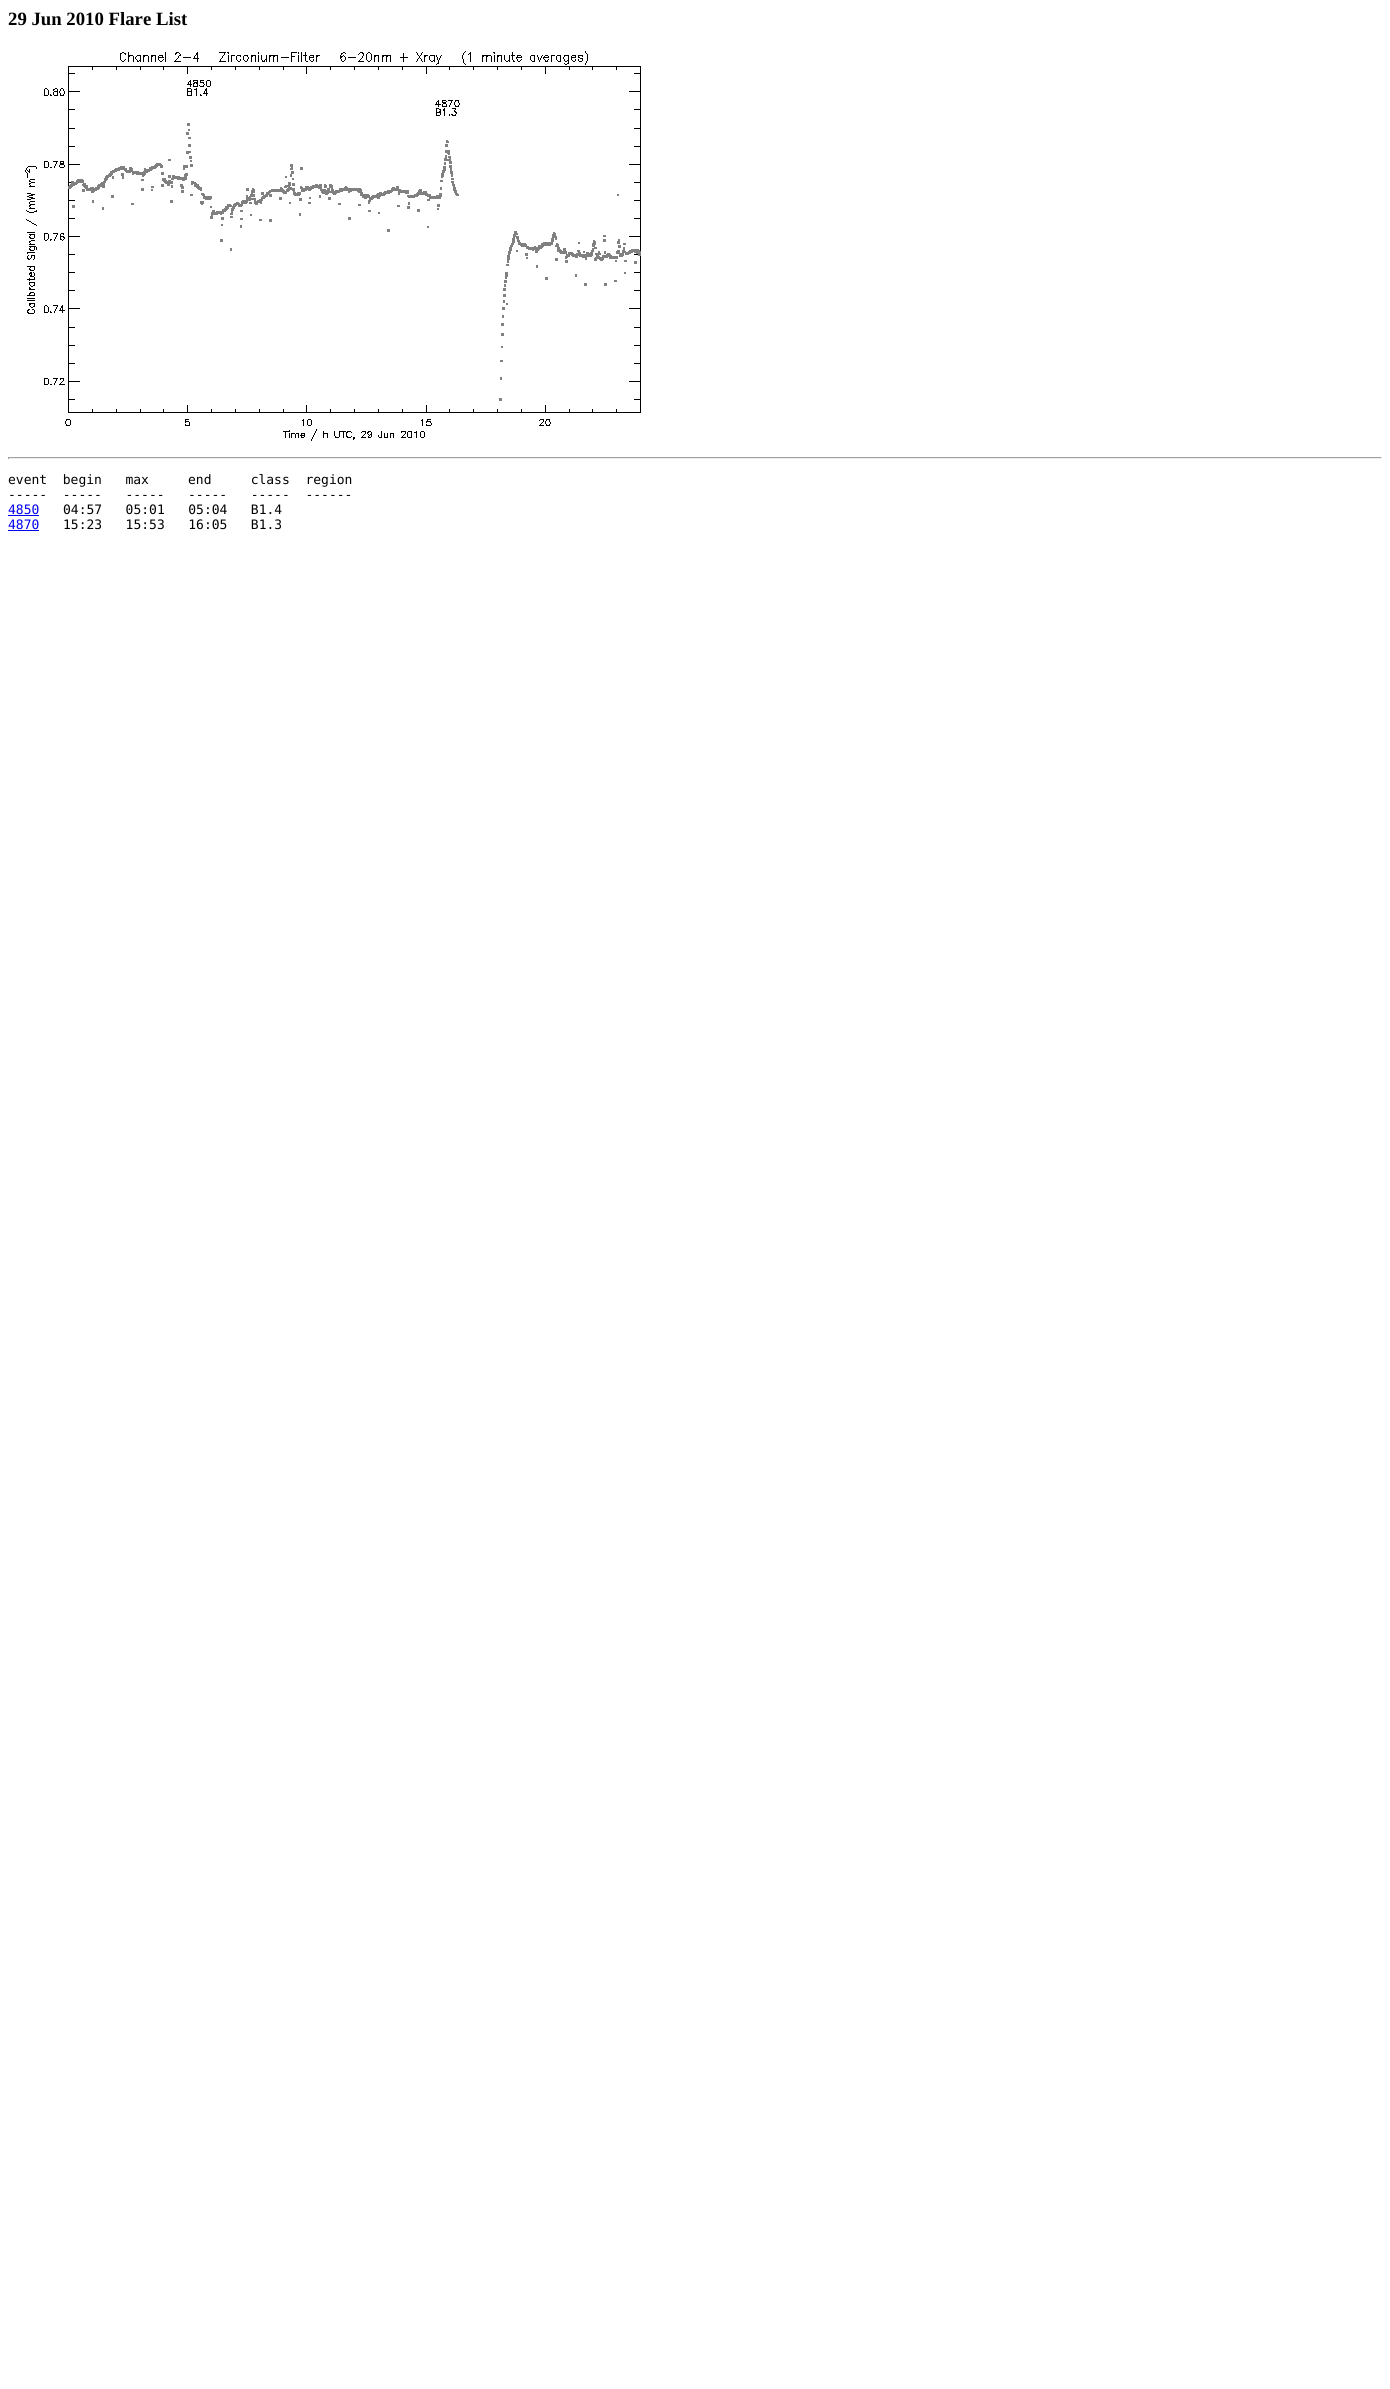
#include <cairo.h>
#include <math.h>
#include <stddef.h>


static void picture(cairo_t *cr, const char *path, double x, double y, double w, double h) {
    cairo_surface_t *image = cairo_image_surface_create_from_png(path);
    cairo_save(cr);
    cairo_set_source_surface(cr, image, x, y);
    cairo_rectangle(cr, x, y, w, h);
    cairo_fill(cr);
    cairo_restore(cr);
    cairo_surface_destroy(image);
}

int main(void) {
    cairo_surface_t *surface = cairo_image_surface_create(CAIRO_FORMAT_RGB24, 1390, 2389);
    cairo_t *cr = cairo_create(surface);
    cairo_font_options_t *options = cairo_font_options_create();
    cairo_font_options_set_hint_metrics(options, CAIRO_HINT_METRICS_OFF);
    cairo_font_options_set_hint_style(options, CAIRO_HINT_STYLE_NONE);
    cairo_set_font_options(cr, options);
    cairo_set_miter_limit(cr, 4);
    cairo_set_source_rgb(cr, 1, 1, 1);
    cairo_paint(cr);
    cairo_select_font_face(cr, "Liberation Serif", CAIRO_FONT_SLANT_NORMAL, CAIRO_FONT_WEIGHT_BOLD);
    cairo_set_font_size(cr, 18.75);
    cairo_set_source_rgb(cr, 0, 0, 0);
    cairo_move_to(cr, 8, 25);
    cairo_show_text(cr, "29 Jun 2010 Flare List");
    picture(cr, "img1.png", 25, 51, 616, 390);
    cairo_set_source_rgb(cr, 0.624, 0.624, 0.624);
    cairo_rectangle(cr, 8, 457, 1374, 1);
    cairo_fill(cr);
    cairo_set_source_rgb(cr, 0.933, 0.933, 0.933);
    cairo_rectangle(cr, 1381, 457, 1, 2);
    cairo_fill(cr);
    cairo_rectangle(cr, 8, 458, 1374, 1);
    cairo_fill(cr);
    cairo_set_source_rgb(cr, 0.624, 0.624, 0.624);
    cairo_rectangle(cr, 8, 457, 1, 2);
    cairo_fill(cr);
    cairo_select_font_face(cr, "DejaVu Sans Mono", CAIRO_FONT_SLANT_NORMAL, CAIRO_FONT_WEIGHT_NORMAL);
    cairo_set_font_size(cr, 13);
    cairo_set_source_rgb(cr, 0, 0, 0);
    cairo_move_to(cr, 8, 484);
    cairo_show_text(cr, "event  begin   max     end     class  region");
    cairo_move_to(cr, 8, 499);
    cairo_show_text(cr, "-----  -----   -----   -----   -----  ------");
    cairo_set_source_rgb(cr, 0, 0, 0.933);
    cairo_move_to(cr, 8, 514);
    cairo_show_text(cr, "4850");
    cairo_rectangle(cr, 8, 515, 31, 1);
    cairo_fill(cr);
    cairo_set_source_rgb(cr, 0, 0, 0);
    cairo_move_to(cr, 63, 514);
    cairo_show_text(cr, "04:57   05:01   05:04   B1.4");
    cairo_set_source_rgb(cr, 0, 0, 0.933);
    cairo_move_to(cr, 8, 529);
    cairo_show_text(cr, "4870");
    cairo_rectangle(cr, 8, 530, 31, 1);
    cairo_fill(cr);
    cairo_set_source_rgb(cr, 0, 0, 0);
    cairo_move_to(cr, 63, 529);
    cairo_show_text(cr, "15:23   15:53   16:05   B1.3");
    cairo_surface_write_to_png(surface, "page.png");
    cairo_font_options_destroy(options);
    cairo_destroy(cr);
    cairo_surface_destroy(surface);
    return 0;
}
